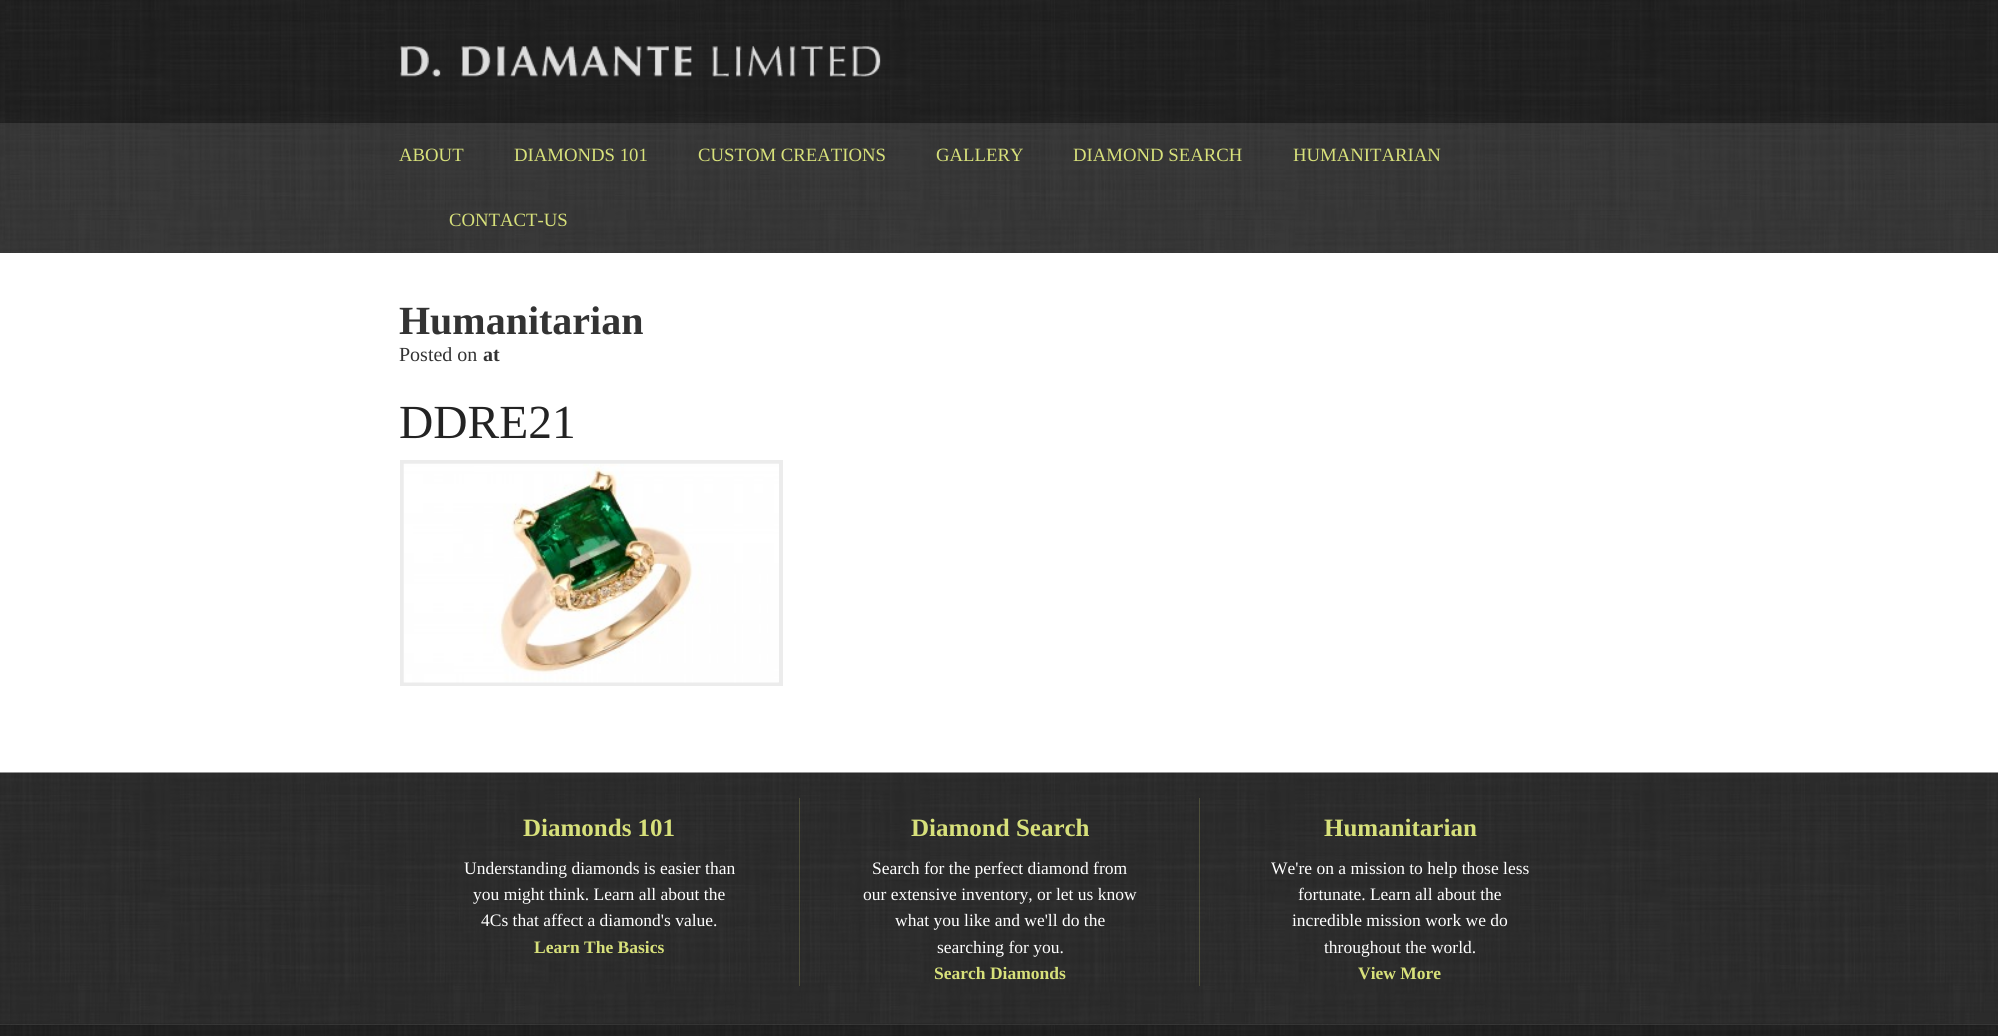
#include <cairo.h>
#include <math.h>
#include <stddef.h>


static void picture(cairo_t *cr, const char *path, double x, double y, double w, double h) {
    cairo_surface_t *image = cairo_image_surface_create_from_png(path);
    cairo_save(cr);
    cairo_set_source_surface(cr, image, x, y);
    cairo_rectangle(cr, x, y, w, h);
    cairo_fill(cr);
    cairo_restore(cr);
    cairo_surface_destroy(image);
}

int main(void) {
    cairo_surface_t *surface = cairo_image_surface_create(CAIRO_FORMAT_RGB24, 1998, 1036);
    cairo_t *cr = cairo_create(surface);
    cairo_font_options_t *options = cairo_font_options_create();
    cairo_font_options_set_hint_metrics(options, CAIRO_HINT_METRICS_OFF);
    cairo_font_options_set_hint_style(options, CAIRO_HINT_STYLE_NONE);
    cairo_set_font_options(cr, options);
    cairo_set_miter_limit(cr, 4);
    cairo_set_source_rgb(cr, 1, 1, 1);
    cairo_paint(cr);
    picture(cr, "img1.png", 0, 0, 1998, 1036);
    cairo_set_source_rgba(cr, 1, 1, 1, 0.1);
    cairo_rectangle(cr, 0, 1024, 1998, 1);
    cairo_fill(cr);
    picture(cr, "img2.png", 5, 0, 1993, 252);
    picture(cr, "img3.png", 400, 46, 481, 31);
    cairo_rectangle(cr, 0, 123, 1998, 130);
    cairo_fill(cr);
    cairo_select_font_face(cr, "Liberation Serif", CAIRO_FONT_SLANT_NORMAL, CAIRO_FONT_WEIGHT_NORMAL);
    cairo_set_font_size(cr, 18.75);
    cairo_set_source_rgb(cr, 0.843, 0.878, 0.478);
    cairo_move_to(cr, 399, 161);
    cairo_show_text(cr, "ABOUT");
    cairo_move_to(cr, 514, 161);
    cairo_show_text(cr, "DIAMONDS 101");
    cairo_move_to(cr, 698, 161);
    cairo_show_text(cr, "CUSTOM CREATIONS");
    cairo_move_to(cr, 936, 161);
    cairo_show_text(cr, "GALLERY");
    cairo_move_to(cr, 1073, 161);
    cairo_show_text(cr, "DIAMOND SEARCH");
    cairo_move_to(cr, 1293, 161);
    cairo_show_text(cr, "HUMANITARIAN");
    cairo_move_to(cr, 449, 226);
    cairo_show_text(cr, "CONTACT-US");
    cairo_set_source_rgb(cr, 1, 1, 1);
    cairo_rectangle(cr, 0, 253, 1998, 520);
    cairo_fill(cr);
    cairo_select_font_face(cr, "Liberation Serif", CAIRO_FONT_SLANT_NORMAL, CAIRO_FONT_WEIGHT_BOLD);
    cairo_set_font_size(cr, 40);
    cairo_set_source_rgb(cr, 0.2, 0.2, 0.2);
    cairo_move_to(cr, 399, 334);
    cairo_show_text(cr, "Humanitarian");
    cairo_select_font_face(cr, "Liberation Serif", CAIRO_FONT_SLANT_NORMAL, CAIRO_FONT_WEIGHT_NORMAL);
    cairo_set_font_size(cr, 20);
    cairo_move_to(cr, 399, 361);
    cairo_show_text(cr, "Posted on");
    cairo_select_font_face(cr, "Liberation Serif", CAIRO_FONT_SLANT_NORMAL, CAIRO_FONT_WEIGHT_BOLD);
    cairo_move_to(cr, 483, 361);
    cairo_show_text(cr, "at");
    cairo_select_font_face(cr, "Liberation Serif", CAIRO_FONT_SLANT_NORMAL, CAIRO_FONT_WEIGHT_NORMAL);
    cairo_set_font_size(cr, 47.5);
    cairo_set_source_rgb(cr, 0.137, 0.137, 0.137);
    cairo_move_to(cr, 399, 438);
    cairo_show_text(cr, "DDRE21");
    cairo_rectangle(cr, 402, 462, 379, 222);
    cairo_set_source_rgb(cr, 0.925, 0.925, 0.925);
    cairo_set_line_width(cr, 4);
    cairo_stroke(cr);
    picture(cr, "img4.png", 403, 463, 376, 220);
    picture(cr, "img5.png", 0, 772, 1998, 252);
    cairo_select_font_face(cr, "Liberation Serif", CAIRO_FONT_SLANT_NORMAL, CAIRO_FONT_WEIGHT_BOLD);
    cairo_set_font_size(cr, 25);
    cairo_set_source_rgb(cr, 0.843, 0.878, 0.478);
    cairo_move_to(cr, 523, 836);
    cairo_show_text(cr, "Diamonds 101");
    cairo_select_font_face(cr, "Liberation Serif", CAIRO_FONT_SLANT_NORMAL, CAIRO_FONT_WEIGHT_NORMAL);
    cairo_set_font_size(cr, 17.5);
    cairo_set_source_rgb(cr, 1, 1, 1);
    cairo_move_to(cr, 464, 874);
    cairo_show_text(cr, "Understanding diamonds is easier than");
    cairo_move_to(cr, 473, 900);
    cairo_show_text(cr, "you might think. Learn all about the");
    cairo_move_to(cr, 481, 926);
    cairo_show_text(cr, "4Cs that affect a diamond's value.");
    cairo_select_font_face(cr, "Liberation Serif", CAIRO_FONT_SLANT_NORMAL, CAIRO_FONT_WEIGHT_BOLD);
    cairo_set_source_rgb(cr, 0.843, 0.878, 0.478);
    cairo_move_to(cr, 534, 953);
    cairo_show_text(cr, "Learn The Basics");
    cairo_set_source_rgba(cr, 0.843, 0.878, 0.478, 0.2);
    cairo_rectangle(cr, 799, 798, 1, 188);
    cairo_fill(cr);
    cairo_set_font_size(cr, 25);
    cairo_set_source_rgb(cr, 0.843, 0.878, 0.478);
    cairo_move_to(cr, 911, 836);
    cairo_show_text(cr, "Diamond Search");
    cairo_select_font_face(cr, "Liberation Serif", CAIRO_FONT_SLANT_NORMAL, CAIRO_FONT_WEIGHT_NORMAL);
    cairo_set_font_size(cr, 17.5);
    cairo_set_source_rgb(cr, 1, 1, 1);
    cairo_move_to(cr, 872, 874);
    cairo_show_text(cr, "Search for the perfect diamond from");
    cairo_move_to(cr, 863, 900);
    cairo_show_text(cr, "our extensive inventory, or let us know");
    cairo_move_to(cr, 895, 926);
    cairo_show_text(cr, "what you like and we'll do the");
    cairo_move_to(cr, 937, 953);
    cairo_show_text(cr, "searching for you.");
    cairo_select_font_face(cr, "Liberation Serif", CAIRO_FONT_SLANT_NORMAL, CAIRO_FONT_WEIGHT_BOLD);
    cairo_set_source_rgb(cr, 0.843, 0.878, 0.478);
    cairo_move_to(cr, 934, 979);
    cairo_show_text(cr, "Search Diamonds");
    cairo_set_source_rgba(cr, 0.843, 0.878, 0.478, 0.2);
    cairo_rectangle(cr, 1199, 798, 1, 188);
    cairo_fill(cr);
    cairo_set_font_size(cr, 25);
    cairo_set_source_rgb(cr, 0.843, 0.878, 0.478);
    cairo_move_to(cr, 1324, 836);
    cairo_show_text(cr, "Humanitarian");
    cairo_select_font_face(cr, "Liberation Serif", CAIRO_FONT_SLANT_NORMAL, CAIRO_FONT_WEIGHT_NORMAL);
    cairo_set_font_size(cr, 17.5);
    cairo_set_source_rgb(cr, 1, 1, 1);
    cairo_move_to(cr, 1271, 874);
    cairo_show_text(cr, "We're on a mission to help those less");
    cairo_move_to(cr, 1298, 900);
    cairo_show_text(cr, "fortunate. Learn all about the");
    cairo_move_to(cr, 1292, 926);
    cairo_show_text(cr, "incredible mission work we do");
    cairo_move_to(cr, 1324, 953);
    cairo_show_text(cr, "throughout the world.");
    cairo_select_font_face(cr, "Liberation Serif", CAIRO_FONT_SLANT_NORMAL, CAIRO_FONT_WEIGHT_BOLD);
    cairo_set_source_rgb(cr, 0.843, 0.878, 0.478);
    cairo_move_to(cr, 1358, 979);
    cairo_show_text(cr, "View More");
    picture(cr, "img6.png", 0, 1025, 1996, 11);
    cairo_surface_write_to_png(surface, "page.png");
    cairo_font_options_destroy(options);
    cairo_destroy(cr);
    cairo_surface_destroy(surface);
    return 0;
}
